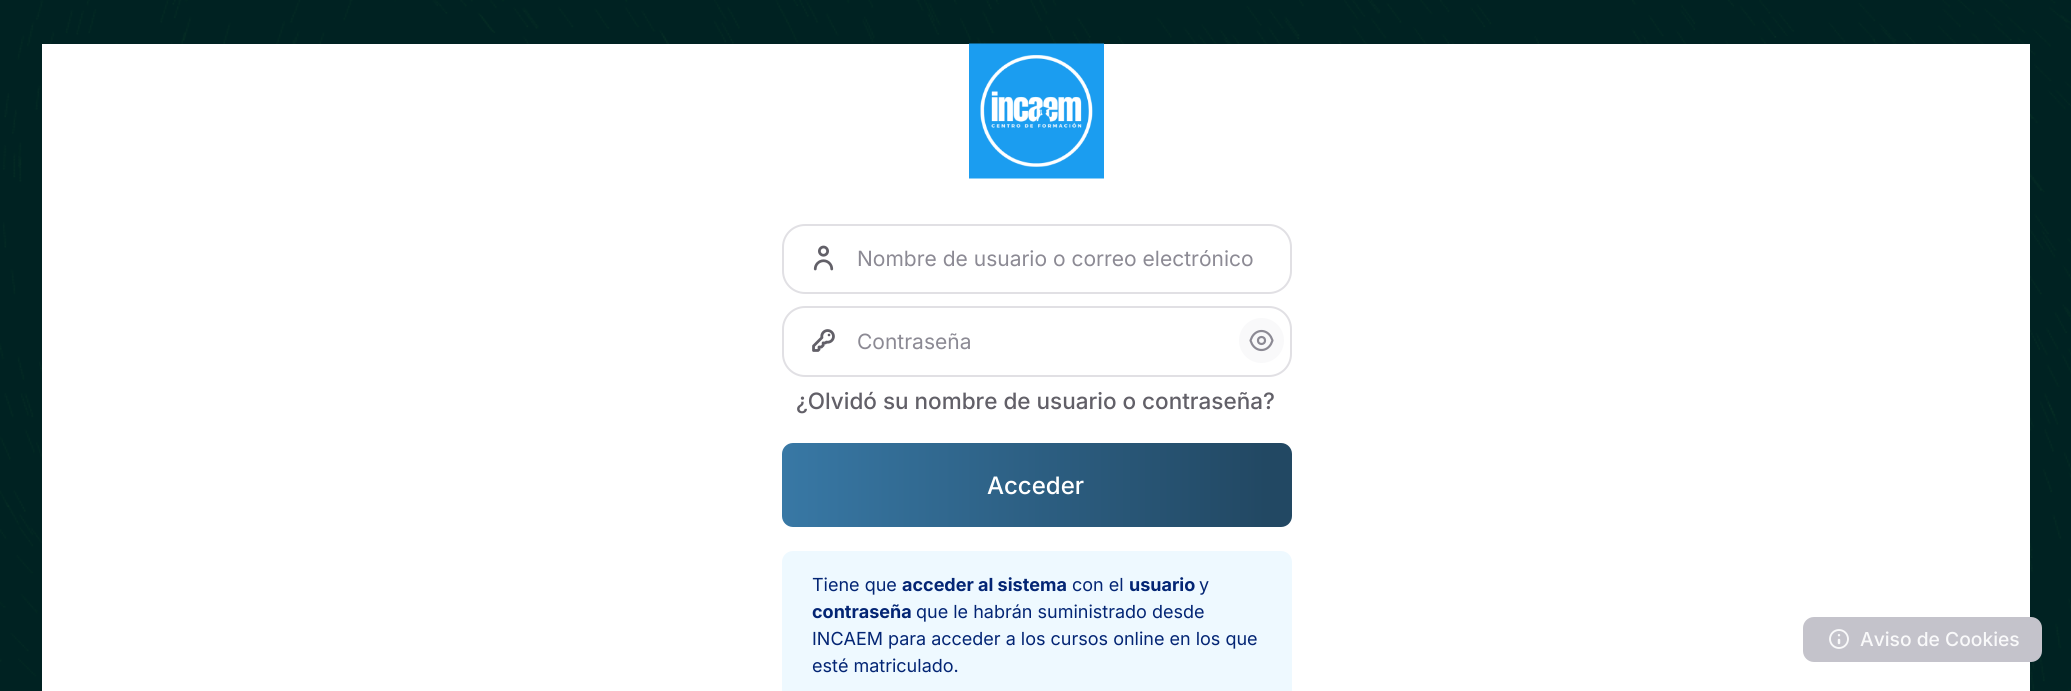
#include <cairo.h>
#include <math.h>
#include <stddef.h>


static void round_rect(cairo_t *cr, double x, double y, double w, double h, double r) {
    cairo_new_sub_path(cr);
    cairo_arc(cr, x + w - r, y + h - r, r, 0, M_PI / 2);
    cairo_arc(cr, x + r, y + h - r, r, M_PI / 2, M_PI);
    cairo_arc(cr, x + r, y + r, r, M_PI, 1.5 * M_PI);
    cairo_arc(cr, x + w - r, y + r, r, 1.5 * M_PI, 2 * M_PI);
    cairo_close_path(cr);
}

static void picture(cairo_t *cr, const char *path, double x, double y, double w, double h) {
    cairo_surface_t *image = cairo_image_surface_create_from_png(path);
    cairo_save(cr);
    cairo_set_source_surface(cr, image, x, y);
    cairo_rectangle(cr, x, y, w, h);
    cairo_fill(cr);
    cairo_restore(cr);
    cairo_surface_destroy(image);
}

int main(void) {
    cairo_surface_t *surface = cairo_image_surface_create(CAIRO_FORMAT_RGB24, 2071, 691);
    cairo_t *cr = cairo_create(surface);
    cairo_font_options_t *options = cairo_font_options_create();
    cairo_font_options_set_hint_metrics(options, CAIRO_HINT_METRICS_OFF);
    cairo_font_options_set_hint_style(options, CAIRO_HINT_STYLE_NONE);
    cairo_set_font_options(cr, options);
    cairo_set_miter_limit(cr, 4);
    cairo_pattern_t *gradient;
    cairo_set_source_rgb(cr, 0, 0.133, 0.133);
    cairo_paint(cr);
    picture(cr, "img1.png", 0, 0, 2071, 691);
    cairo_set_source_rgb(cr, 1, 1, 1);
    cairo_rectangle(cr, 42, 44, 1988, 647);
    cairo_fill(cr);
    picture(cr, "img2.png", 969, 43, 135, 136);
    picture(cr, "img3.png", 813, 245, 21, 26);
    round_rect(cr, 783, 225, 508, 68, 22);
    cairo_set_source_rgb(cr, 0.882, 0.878, 0.894);
    cairo_stroke(cr);
    cairo_select_font_face(cr, "Inter", CAIRO_FONT_SLANT_NORMAL, CAIRO_FONT_WEIGHT_NORMAL);
    cairo_set_font_size(cr, 21);
    cairo_set_source_rgb(cr, 0.549, 0.541, 0.58);
    cairo_move_to(cr, 857, 266);
    cairo_show_text(cr, "Nombre de usuario o correo electrónico");
    picture(cr, "img4.png", 812, 329, 23, 23);
    round_rect(cr, 783, 307, 508, 69, 22);
    cairo_set_source_rgb(cr, 0.882, 0.878, 0.894);
    cairo_stroke(cr);
    cairo_set_source_rgb(cr, 0.549, 0.541, 0.58);
    cairo_move_to(cr, 857, 349);
    cairo_show_text(cr, "Contraseña");
    cairo_set_source_rgb(cr, 0.976, 0.976, 0.98);
    cairo_new_path(cr);
    cairo_arc(cr, 1261.5, 340.5, 22.5, 0, 2 * M_PI);
    cairo_fill(cr);
    cairo_new_path(cr);
    cairo_move_to(cr, 1272.5, 340.5);
    cairo_line_to(cr, 1271, 344);
    cairo_curve_to(cr, 1266.5, 352, 1256.5, 352, 1252, 344);
    cairo_line_to(cr, 1250.5, 340.5);
    cairo_line_to(cr, 1252, 337);
    cairo_curve_to(cr, 1256.5, 329, 1266.5, 329, 1271, 337);
    cairo_close_path(cr);
    cairo_set_source_rgb(cr, 0.549, 0.541, 0.58);
    cairo_set_line_width(cr, 2.2);
    cairo_set_line_cap(cr, CAIRO_LINE_CAP_ROUND);
    cairo_set_line_join(cr, CAIRO_LINE_JOIN_ROUND);
    cairo_stroke(cr);
    cairo_arc(cr, 1261.5, 340.5, 3.5, 0, 2 * M_PI);
    cairo_set_line_cap(cr, CAIRO_LINE_CAP_BUTT);
    cairo_set_line_join(cr, CAIRO_LINE_JOIN_MITER);
    cairo_stroke(cr);
    cairo_select_font_face(cr, "Inter Medium", CAIRO_FONT_SLANT_NORMAL, CAIRO_FONT_WEIGHT_NORMAL);
    cairo_set_font_size(cr, 22.5);
    cairo_set_source_rgb(cr, 0.384, 0.376, 0.408);
    cairo_move_to(cr, 796, 409);
    cairo_show_text(cr, "¿Olvidó su nombre de usuario o contraseña?");
    gradient = cairo_pattern_create_linear(782, 485, 1292, 485);
    cairo_pattern_add_color_stop_rgba(gradient, 0, 0.22, 0.471, 0.647, 1);
    cairo_pattern_add_color_stop_rgba(gradient, 0.95, 0.133, 0.282, 0.388, 1);
    cairo_set_source(cr, gradient);
    cairo_pattern_destroy(gradient);
    round_rect(cr, 782, 443, 510, 84, 11);
    cairo_fill(cr);
    cairo_set_font_size(cr, 24);
    cairo_set_source_rgb(cr, 1, 1, 1);
    cairo_move_to(cr, 987, 494);
    cairo_show_text(cr, "Acceder");
    cairo_set_source_rgb(cr, 0.933, 0.973, 1);
    round_rect(cr, 782, 551, 510, 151, 11);
    cairo_fill(cr);
    cairo_select_font_face(cr, "Inter", CAIRO_FONT_SLANT_NORMAL, CAIRO_FONT_WEIGHT_NORMAL);
    cairo_set_font_size(cr, 18);
    cairo_set_source_rgb(cr, 0.012, 0.145, 0.455);
    cairo_move_to(cr, 812, 591);
    cairo_show_text(cr, "Tiene que");
    cairo_select_font_face(cr, "Inter", CAIRO_FONT_SLANT_NORMAL, CAIRO_FONT_WEIGHT_BOLD);
    cairo_move_to(cr, 902, 591);
    cairo_show_text(cr, "acceder al sistema");
    cairo_select_font_face(cr, "Inter", CAIRO_FONT_SLANT_NORMAL, CAIRO_FONT_WEIGHT_NORMAL);
    cairo_move_to(cr, 1072, 591);
    cairo_show_text(cr, "con el");
    cairo_select_font_face(cr, "Inter", CAIRO_FONT_SLANT_NORMAL, CAIRO_FONT_WEIGHT_BOLD);
    cairo_move_to(cr, 1129, 591);
    cairo_show_text(cr, "usuario");
    cairo_select_font_face(cr, "Inter", CAIRO_FONT_SLANT_NORMAL, CAIRO_FONT_WEIGHT_NORMAL);
    cairo_move_to(cr, 1199, 591);
    cairo_show_text(cr, "y");
    cairo_select_font_face(cr, "Inter", CAIRO_FONT_SLANT_NORMAL, CAIRO_FONT_WEIGHT_BOLD);
    cairo_move_to(cr, 812, 618);
    cairo_show_text(cr, "contraseña");
    cairo_select_font_face(cr, "Inter", CAIRO_FONT_SLANT_NORMAL, CAIRO_FONT_WEIGHT_NORMAL);
    cairo_move_to(cr, 916, 618);
    cairo_show_text(cr, "que le habrán suministrado desde");
    cairo_move_to(cr, 812, 645);
    cairo_show_text(cr, "INCAEM para acceder a los cursos online en los que");
    cairo_move_to(cr, 812, 672);
    cairo_show_text(cr, "esté matriculado.");
    cairo_set_source_rgb(cr, 0.769, 0.765, 0.796);
    round_rect(cr, 1803, 617, 239, 45, 11);
    cairo_fill(cr);
    cairo_new_path(cr);
    cairo_move_to(cr, 1839, 640);
    cairo_line_to(cr, 1839, 643);
    cairo_set_source_rgb(cr, 0.976, 0.976, 0.98);
    cairo_set_line_width(cr, 2.5);
    cairo_set_line_cap(cr, CAIRO_LINE_CAP_ROUND);
    cairo_set_line_join(cr, CAIRO_LINE_JOIN_ROUND);
    cairo_stroke(cr);
    cairo_arc(cr, 1839, 635.2, 1.2, 0, 2 * M_PI);
    cairo_fill(cr);
    cairo_arc(cr, 1839, 639, 9, 0, 2 * M_PI);
    cairo_set_line_width(cr, 1.9);
    cairo_set_line_cap(cr, CAIRO_LINE_CAP_BUTT);
    cairo_set_line_join(cr, CAIRO_LINE_JOIN_MITER);
    cairo_stroke(cr);
    cairo_select_font_face(cr, "Inter Medium", CAIRO_FONT_SLANT_NORMAL, CAIRO_FONT_WEIGHT_NORMAL);
    cairo_set_font_size(cr, 19.25);
    cairo_move_to(cr, 1860, 646);
    cairo_show_text(cr, "Aviso de Cookies");
    cairo_surface_write_to_png(surface, "page.png");
    cairo_font_options_destroy(options);
    cairo_destroy(cr);
    cairo_surface_destroy(surface);
    return 0;
}
